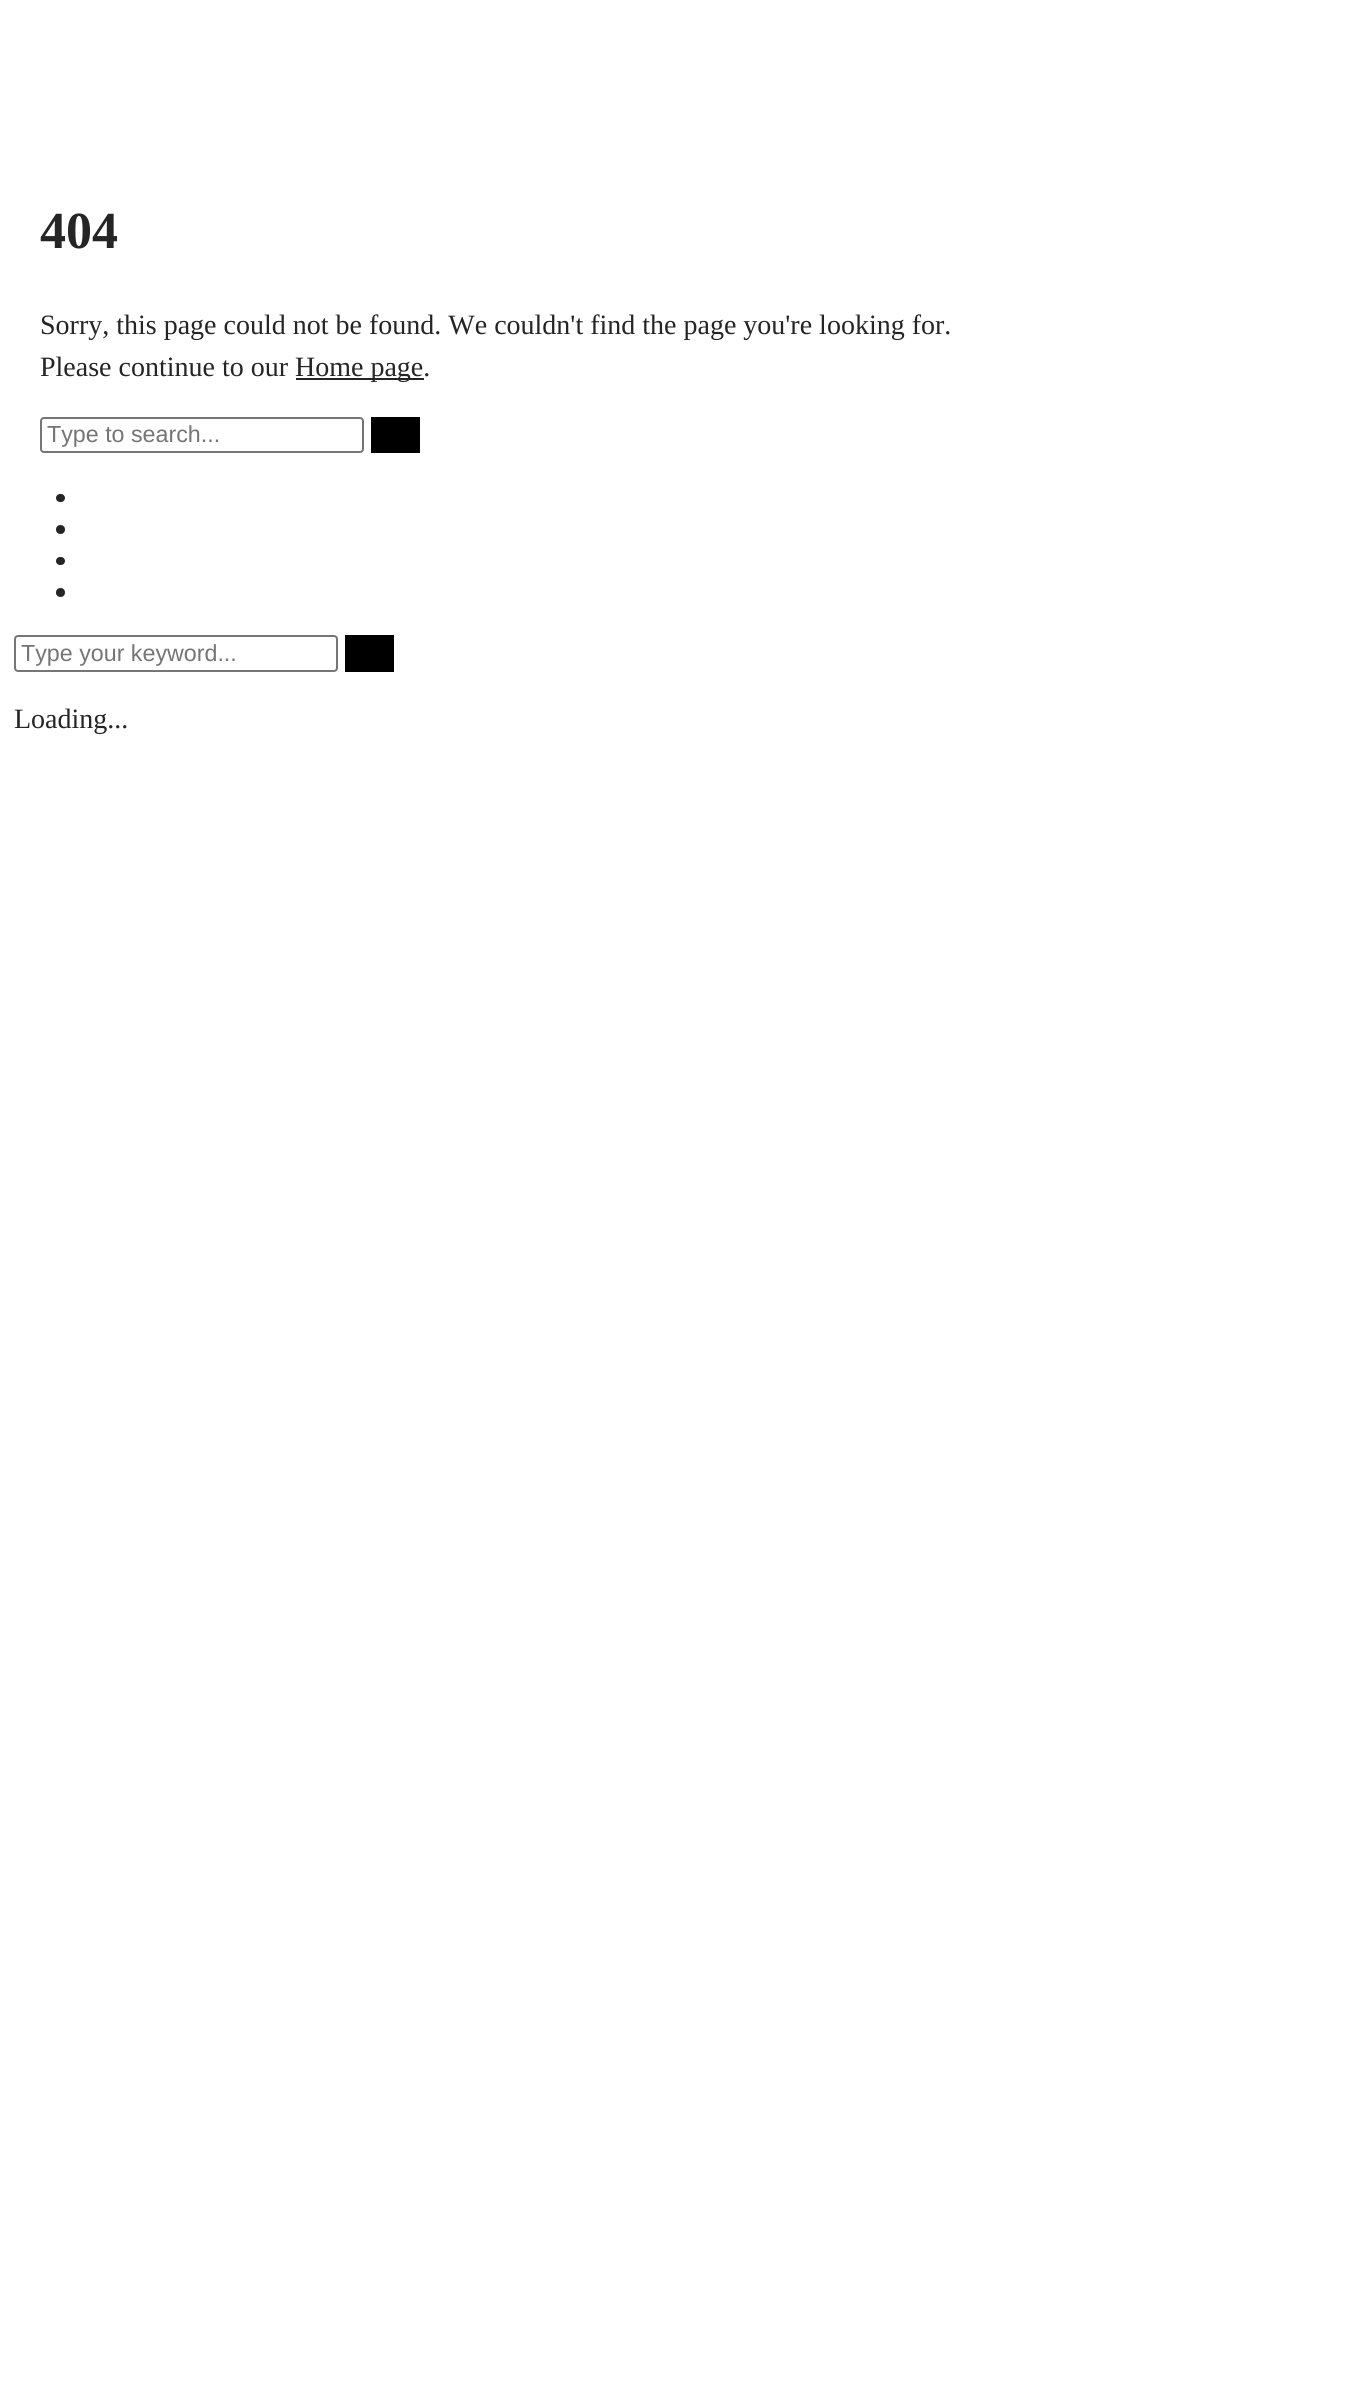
#include <cairo.h>
#include <math.h>
#include <stddef.h>


static void round_rect(cairo_t *cr, double x, double y, double w, double h, double r) {
    cairo_new_sub_path(cr);
    cairo_arc(cr, x + w - r, y + h - r, r, 0, M_PI / 2);
    cairo_arc(cr, x + r, y + h - r, r, M_PI / 2, M_PI);
    cairo_arc(cr, x + r, y + r, r, M_PI, 1.5 * M_PI);
    cairo_arc(cr, x + w - r, y + r, r, 1.5 * M_PI, 2 * M_PI);
    cairo_close_path(cr);
}

int main(void) {
    cairo_surface_t *surface = cairo_image_surface_create(CAIRO_FORMAT_RGB24, 1350, 2386);
    cairo_t *cr = cairo_create(surface);
    cairo_font_options_t *options = cairo_font_options_create();
    cairo_font_options_set_hint_metrics(options, CAIRO_HINT_METRICS_OFF);
    cairo_font_options_set_hint_style(options, CAIRO_HINT_STYLE_NONE);
    cairo_set_font_options(cr, options);
    cairo_set_miter_limit(cr, 4);
    cairo_set_source_rgb(cr, 1, 1, 1);
    cairo_paint(cr);
    cairo_select_font_face(cr, "Liberation Serif", CAIRO_FONT_SLANT_NORMAL, CAIRO_FONT_WEIGHT_BOLD);
    cairo_set_font_size(cr, 52);
    cairo_set_source_rgb(cr, 0.145, 0.145, 0.145);
    cairo_move_to(cr, 40, 248);
    cairo_show_text(cr, "404");
    cairo_select_font_face(cr, "Liberation Serif", CAIRO_FONT_SLANT_NORMAL, CAIRO_FONT_WEIGHT_NORMAL);
    cairo_set_font_size(cr, 28);
    cairo_move_to(cr, 40, 334);
    cairo_show_text(cr, "Sorry, this page could not be found. We couldn't find the page you're looking for.");
    cairo_move_to(cr, 40, 376);
    cairo_show_text(cr, "Please continue to our");
    cairo_rectangle(cr, 296, 378, 128, 2);
    cairo_fill(cr);
    cairo_move_to(cr, 295, 376);
    cairo_show_text(cr, "Home page.");
    round_rect(cr, 41, 418, 322, 34, 3);
    cairo_set_source_rgb(cr, 0.463, 0.463, 0.463);
    cairo_stroke(cr);
    cairo_select_font_face(cr, "Liberation Sans", CAIRO_FONT_SLANT_NORMAL, CAIRO_FONT_WEIGHT_NORMAL);
    cairo_set_font_size(cr, 23.25);
    cairo_set_source_rgb(cr, 0.459, 0.459, 0.459);
    cairo_move_to(cr, 47, 442);
    cairo_show_text(cr, "Type to search...");
    cairo_set_source_rgb(cr, 0, 0, 0);
    cairo_rectangle(cr, 371, 417, 49, 36);
    cairo_fill(cr);
    cairo_set_source_rgb(cr, 0.145, 0.145, 0.145);
    round_rect(cr, 56, 494, 9, 8, 4);
    cairo_fill(cr);
    cairo_arc(cr, 60.5, 529.5, 4.5, 0, 2 * M_PI);
    cairo_fill(cr);
    round_rect(cr, 56, 557, 9, 8, 4);
    cairo_fill(cr);
    cairo_arc(cr, 60.5, 592.5, 4.5, 0, 2 * M_PI);
    cairo_fill(cr);
    round_rect(cr, 15, 636, 322, 35, 3);
    cairo_set_source_rgb(cr, 0.463, 0.463, 0.463);
    cairo_stroke(cr);
    cairo_set_source_rgb(cr, 0.459, 0.459, 0.459);
    cairo_move_to(cr, 21, 661);
    cairo_show_text(cr, "Type your keyword...");
    cairo_set_source_rgb(cr, 0, 0, 0);
    cairo_rectangle(cr, 345, 635, 49, 37);
    cairo_fill(cr);
    cairo_select_font_face(cr, "Liberation Serif", CAIRO_FONT_SLANT_NORMAL, CAIRO_FONT_WEIGHT_NORMAL);
    cairo_set_font_size(cr, 28);
    cairo_set_source_rgb(cr, 0.145, 0.145, 0.145);
    cairo_move_to(cr, 14, 728);
    cairo_show_text(cr, "Loading...");
    cairo_surface_write_to_png(surface, "page.png");
    cairo_font_options_destroy(options);
    cairo_destroy(cr);
    cairo_surface_destroy(surface);
    return 0;
}
